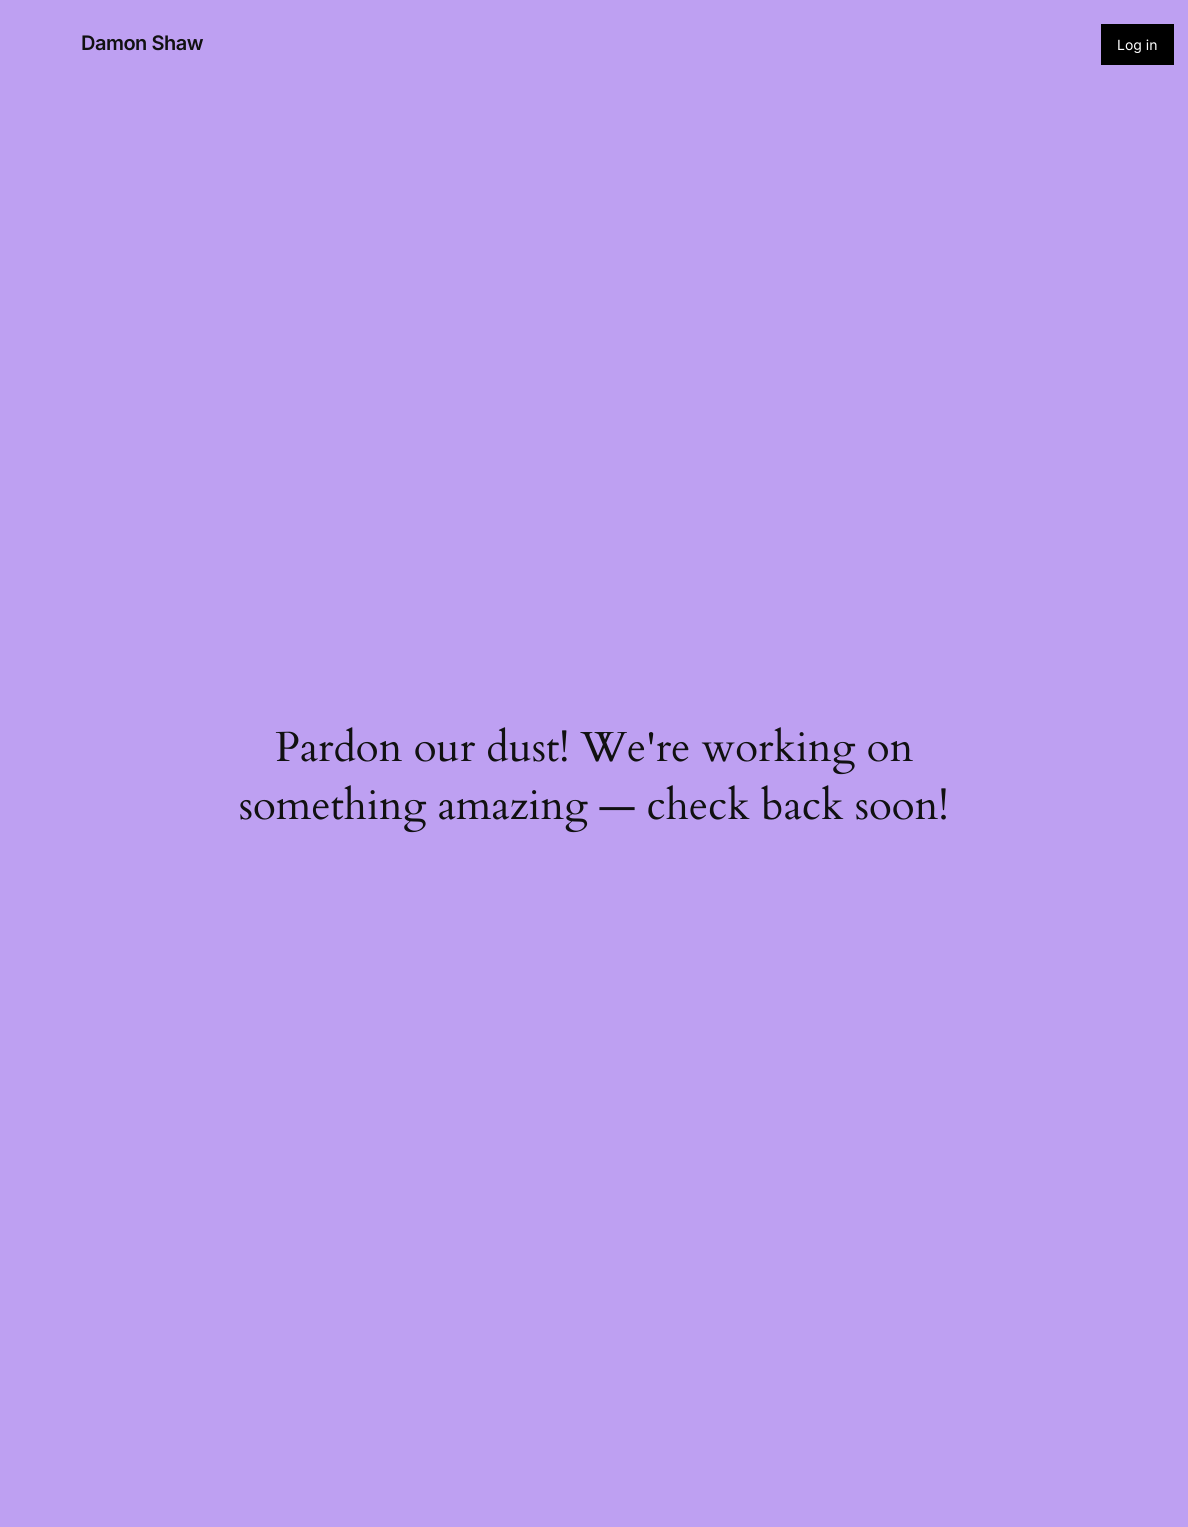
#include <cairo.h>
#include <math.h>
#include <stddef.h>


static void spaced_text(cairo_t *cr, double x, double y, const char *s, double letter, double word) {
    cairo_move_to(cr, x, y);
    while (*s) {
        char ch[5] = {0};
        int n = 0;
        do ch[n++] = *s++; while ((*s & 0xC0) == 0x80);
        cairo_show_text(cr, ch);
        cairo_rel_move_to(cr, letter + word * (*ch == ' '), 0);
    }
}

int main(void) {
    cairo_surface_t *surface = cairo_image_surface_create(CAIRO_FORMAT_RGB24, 1188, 1527);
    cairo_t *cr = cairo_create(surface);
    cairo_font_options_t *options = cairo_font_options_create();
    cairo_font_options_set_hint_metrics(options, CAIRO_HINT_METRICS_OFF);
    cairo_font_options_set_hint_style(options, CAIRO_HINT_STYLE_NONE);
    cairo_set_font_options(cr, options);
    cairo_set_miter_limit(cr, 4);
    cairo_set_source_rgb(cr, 0.745, 0.627, 0.949);
    cairo_paint(cr);
    cairo_select_font_face(cr, "Inter SemiBold", CAIRO_FONT_SLANT_NORMAL, CAIRO_FONT_WEIGHT_NORMAL);
    cairo_set_font_size(cr, 20);
    cairo_set_source_rgb(cr, 0.067, 0.067, 0.067);
    spaced_text(cr, 81, 50, "Damon Shaw", -0.5, 0);
    cairo_set_source_rgb(cr, 0, 0, 0);
    cairo_rectangle(cr, 1101, 24, 73, 41);
    cairo_fill(cr);
    cairo_select_font_face(cr, "Inter", CAIRO_FONT_SLANT_NORMAL, CAIRO_FONT_WEIGHT_NORMAL);
    cairo_set_font_size(cr, 14);
    cairo_set_source_rgb(cr, 1, 1, 1);
    cairo_move_to(cr, 1117, 50);
    cairo_show_text(cr, "Log in");
    cairo_select_font_face(cr, "Cardo", CAIRO_FONT_SLANT_NORMAL, CAIRO_FONT_WEIGHT_NORMAL);
    cairo_set_font_size(cr, 42.1);
    cairo_set_source_rgb(cr, 0.067, 0.067, 0.067);
    cairo_move_to(cr, 275, 761);
    cairo_show_text(cr, "Pardon our dust! We're working on");
    cairo_move_to(cr, 239, 819);
    cairo_show_text(cr, "something amazing — check back soon!");
    cairo_surface_write_to_png(surface, "page.png");
    cairo_font_options_destroy(options);
    cairo_destroy(cr);
    cairo_surface_destroy(surface);
    return 0;
}
